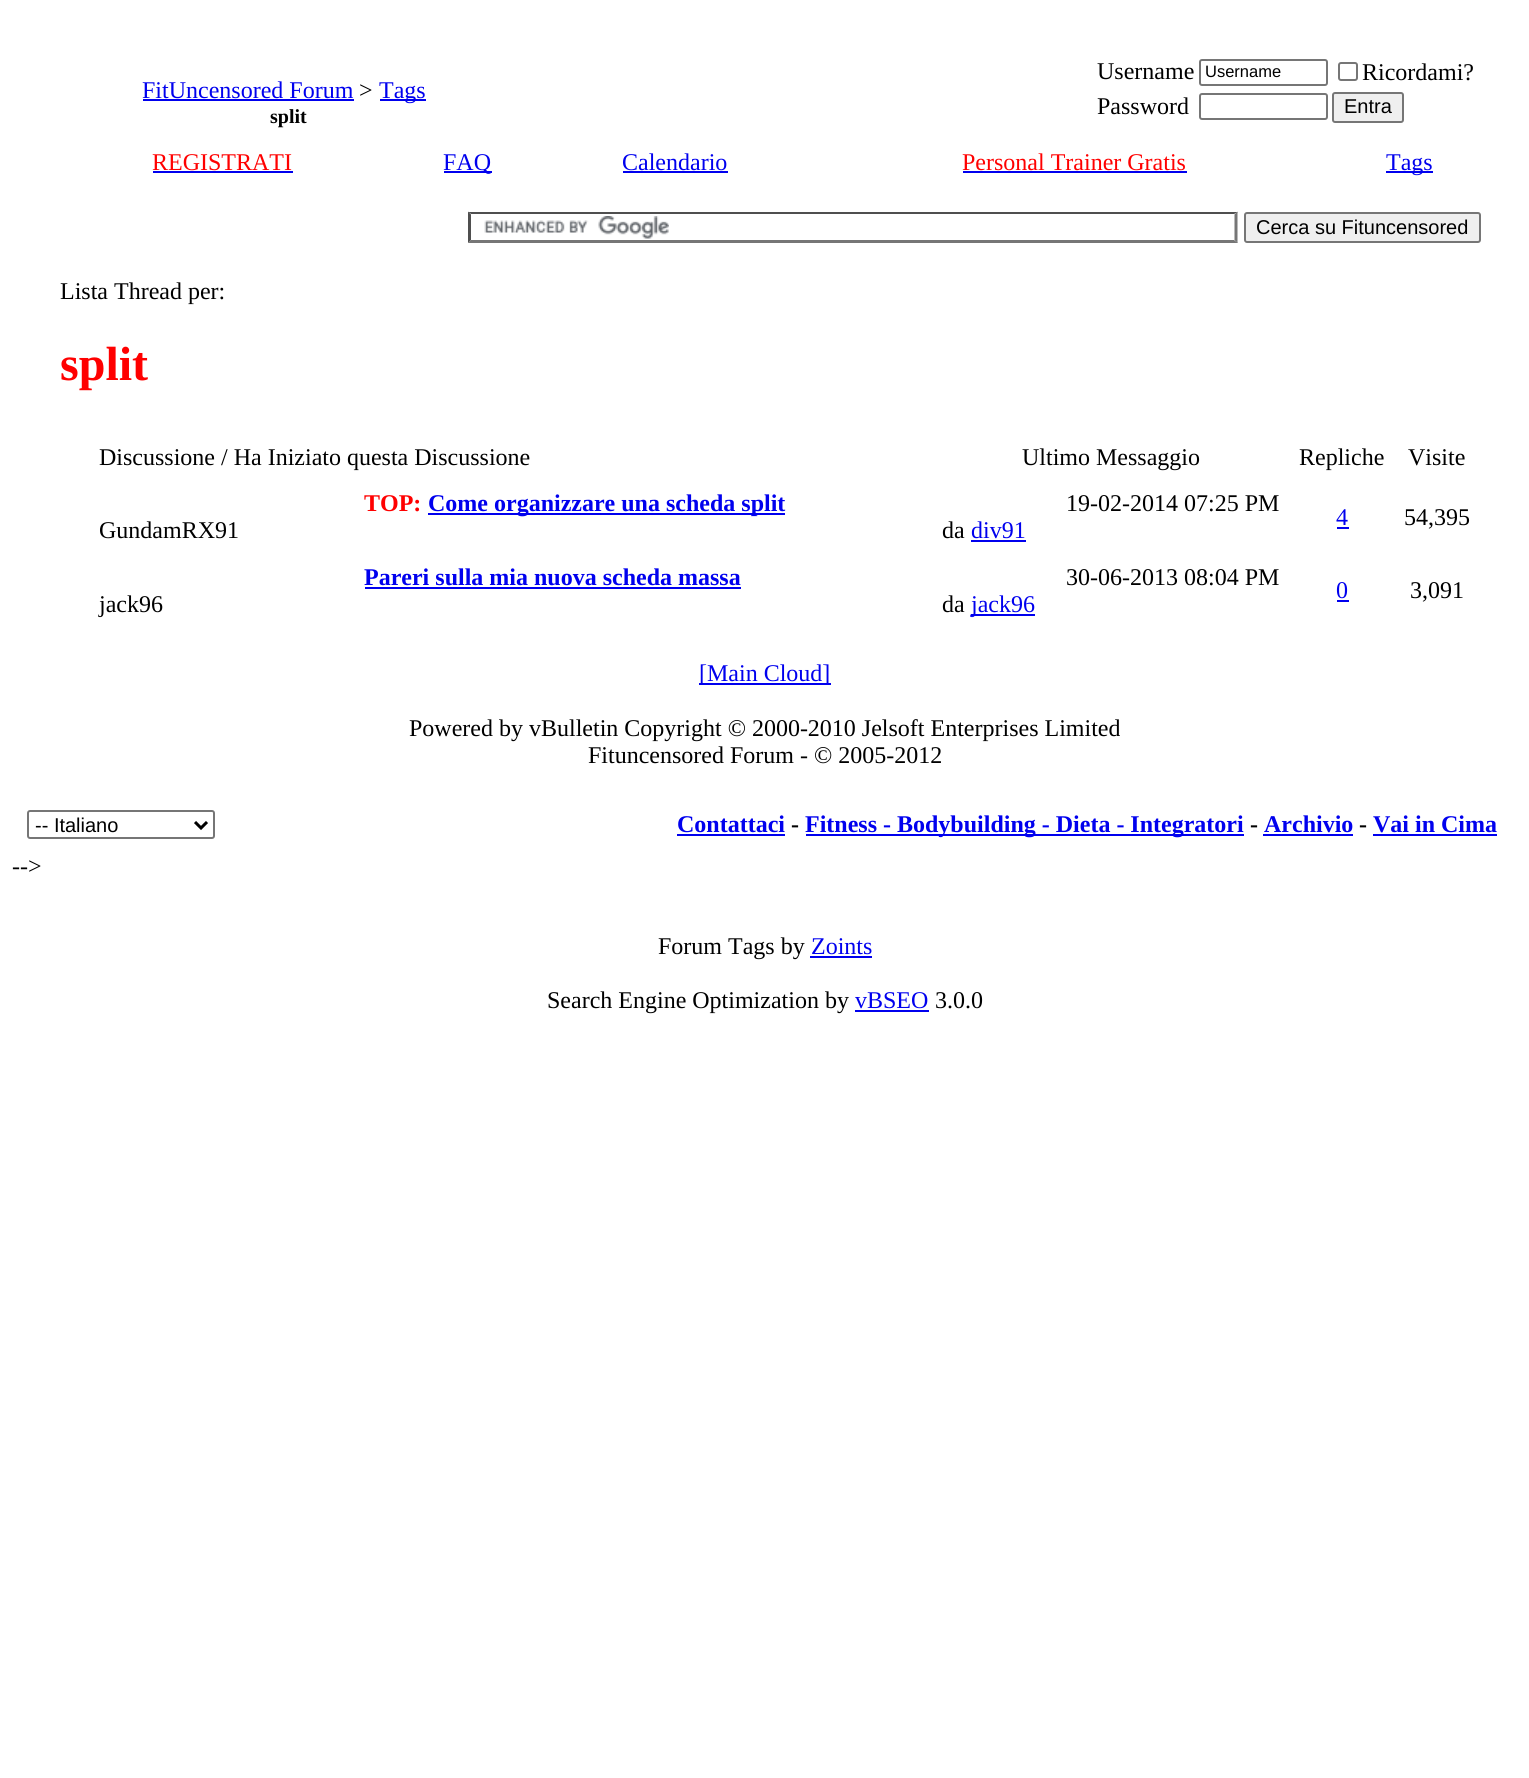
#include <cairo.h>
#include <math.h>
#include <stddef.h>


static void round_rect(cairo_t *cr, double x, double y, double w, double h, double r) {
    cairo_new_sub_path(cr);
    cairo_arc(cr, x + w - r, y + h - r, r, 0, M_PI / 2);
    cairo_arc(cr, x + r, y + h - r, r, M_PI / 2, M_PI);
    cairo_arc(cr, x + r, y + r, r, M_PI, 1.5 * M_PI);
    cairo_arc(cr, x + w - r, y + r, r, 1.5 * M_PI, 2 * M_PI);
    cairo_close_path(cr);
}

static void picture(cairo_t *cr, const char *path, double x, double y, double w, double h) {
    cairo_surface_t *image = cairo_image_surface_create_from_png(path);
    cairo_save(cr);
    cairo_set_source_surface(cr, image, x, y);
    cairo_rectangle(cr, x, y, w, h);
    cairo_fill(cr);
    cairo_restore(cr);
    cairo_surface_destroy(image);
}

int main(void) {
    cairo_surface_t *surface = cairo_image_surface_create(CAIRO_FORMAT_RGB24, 1529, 1778);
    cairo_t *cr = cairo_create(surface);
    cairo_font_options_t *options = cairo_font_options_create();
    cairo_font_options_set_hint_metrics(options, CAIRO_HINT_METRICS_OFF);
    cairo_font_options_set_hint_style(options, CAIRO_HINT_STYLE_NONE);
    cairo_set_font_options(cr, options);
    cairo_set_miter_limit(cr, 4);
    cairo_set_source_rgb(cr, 1, 1, 1);
    cairo_paint(cr);
    cairo_select_font_face(cr, "Liberation Serif", CAIRO_FONT_SLANT_NORMAL, CAIRO_FONT_WEIGHT_NORMAL);
    cairo_set_font_size(cr, 24);
    cairo_set_source_rgb(cr, 0, 0, 0.933);
    cairo_move_to(cr, 142, 98);
    cairo_show_text(cr, "FitUncensored Forum");
    cairo_rectangle(cr, 143, 99, 211, 2);
    cairo_fill(cr);
    cairo_set_source_rgb(cr, 0, 0, 0);
    cairo_move_to(cr, 359, 98);
    cairo_show_text(cr, ">");
    cairo_set_source_rgb(cr, 0, 0, 0.933);
    cairo_rectangle(cr, 380, 99, 46, 2);
    cairo_fill(cr);
    cairo_move_to(cr, 379, 98);
    cairo_show_text(cr, "Tags");
    cairo_select_font_face(cr, "Liberation Serif", CAIRO_FONT_SLANT_NORMAL, CAIRO_FONT_WEIGHT_BOLD);
    cairo_set_font_size(cr, 20);
    cairo_set_source_rgb(cr, 0, 0, 0);
    cairo_move_to(cr, 270, 123);
    cairo_show_text(cr, "split");
    cairo_select_font_face(cr, "Liberation Serif", CAIRO_FONT_SLANT_NORMAL, CAIRO_FONT_WEIGHT_NORMAL);
    cairo_set_font_size(cr, 24);
    cairo_move_to(cr, 1097, 79);
    cairo_show_text(cr, "Username");
    round_rect(cr, 1200, 60, 127, 25, 2);
    cairo_set_source_rgb(cr, 0.463, 0.463, 0.463);
    cairo_stroke(cr);
    cairo_select_font_face(cr, "Liberation Sans", CAIRO_FONT_SLANT_NORMAL, CAIRO_FONT_WEIGHT_NORMAL);
    cairo_set_font_size(cr, 16.5);
    cairo_set_source_rgb(cr, 0, 0, 0);
    cairo_move_to(cr, 1205, 77);
    cairo_show_text(cr, "Username");
    round_rect(cr, 1339, 63, 18, 17, 2);
    cairo_set_source_rgb(cr, 0.463, 0.463, 0.463);
    cairo_stroke(cr);
    cairo_select_font_face(cr, "Liberation Serif", CAIRO_FONT_SLANT_NORMAL, CAIRO_FONT_WEIGHT_NORMAL);
    cairo_set_font_size(cr, 24);
    cairo_set_source_rgb(cr, 0, 0, 0);
    cairo_move_to(cr, 1362, 80);
    cairo_show_text(cr, "Ricordami?");
    cairo_move_to(cr, 1097, 114);
    cairo_show_text(cr, "Password");
    round_rect(cr, 1200, 94, 127, 25, 2);
    cairo_set_source_rgb(cr, 0.463, 0.463, 0.463);
    cairo_stroke(cr);
    cairo_set_source_rgb(cr, 0.937, 0.937, 0.937);
    round_rect(cr, 1333, 93, 70, 29, 2);
    cairo_fill_preserve(cr);
    cairo_set_source_rgb(cr, 0.463, 0.463, 0.463);
    cairo_stroke(cr);
    cairo_select_font_face(cr, "Liberation Sans", CAIRO_FONT_SLANT_NORMAL, CAIRO_FONT_WEIGHT_NORMAL);
    cairo_set_font_size(cr, 20);
    cairo_set_source_rgb(cr, 0, 0, 0);
    cairo_move_to(cr, 1344, 113);
    cairo_show_text(cr, "Entra");
    cairo_select_font_face(cr, "Liberation Serif", CAIRO_FONT_SLANT_NORMAL, CAIRO_FONT_WEIGHT_NORMAL);
    cairo_set_font_size(cr, 24);
    cairo_set_source_rgb(cr, 1, 0, 0);
    cairo_move_to(cr, 152, 170);
    cairo_show_text(cr, "REGISTRATI");
    cairo_set_source_rgb(cr, 0, 0, 0.933);
    cairo_rectangle(cr, 153, 171, 140, 2);
    cairo_fill(cr);
    cairo_rectangle(cr, 444, 171, 48, 2);
    cairo_fill(cr);
    cairo_move_to(cr, 443, 170);
    cairo_show_text(cr, "FAQ");
    cairo_move_to(cr, 622, 170);
    cairo_show_text(cr, "Calendario");
    cairo_rectangle(cr, 623, 171, 105, 2);
    cairo_fill(cr);
    cairo_set_source_rgb(cr, 1, 0, 0);
    cairo_move_to(cr, 962, 170);
    cairo_show_text(cr, "Personal Trainer Gratis");
    cairo_set_source_rgb(cr, 0, 0, 0.933);
    cairo_rectangle(cr, 963, 171, 224, 2);
    cairo_fill(cr);
    cairo_rectangle(cr, 1386, 171, 47, 2);
    cairo_fill(cr);
    cairo_move_to(cr, 1386, 170);
    cairo_show_text(cr, "Tags");
    picture(cr, "img1.png", 484, 216, 185, 23);
    cairo_set_source_rgb(cr, 0.31, 0.31, 0.31);
    cairo_new_path(cr);
    cairo_move_to(cr, 468, 212);
    cairo_line_to(cr, 1238, 212);
    cairo_line_to(cr, 1234, 214);
    cairo_line_to(cr, 471, 214);
    cairo_close_path(cr);
    cairo_fill(cr);
    cairo_set_source_rgb(cr, 0.463, 0.463, 0.463);
    cairo_new_path(cr);
    cairo_move_to(cr, 1237.5, 211.5);
    cairo_line_to(cr, 1237.5, 243);
    cairo_line_to(cr, 1234.5, 240);
    cairo_line_to(cr, 1234.5, 214.5);
    cairo_close_path(cr);
    cairo_fill(cr);
    cairo_new_path(cr);
    cairo_move_to(cr, 1238, 243);
    cairo_line_to(cr, 468, 243);
    cairo_line_to(cr, 471, 240);
    cairo_line_to(cr, 1234, 240);
    cairo_close_path(cr);
    cairo_fill(cr);
    cairo_set_source_rgb(cr, 0.31, 0.31, 0.31);
    cairo_new_path(cr);
    cairo_move_to(cr, 468, 243);
    cairo_line_to(cr, 468, 211.5);
    cairo_line_to(cr, 471, 214.5);
    cairo_line_to(cr, 471, 240);
    cairo_close_path(cr);
    cairo_fill(cr);
    cairo_set_source_rgb(cr, 0.937, 0.937, 0.937);
    round_rect(cr, 1245, 213, 235, 29, 2);
    cairo_fill_preserve(cr);
    cairo_set_source_rgb(cr, 0.463, 0.463, 0.463);
    cairo_stroke(cr);
    cairo_select_font_face(cr, "Liberation Sans", CAIRO_FONT_SLANT_NORMAL, CAIRO_FONT_WEIGHT_NORMAL);
    cairo_set_font_size(cr, 20);
    cairo_set_source_rgb(cr, 0, 0, 0);
    cairo_move_to(cr, 1256, 234);
    cairo_show_text(cr, "Cerca su Fituncensored");
    cairo_select_font_face(cr, "Liberation Serif", CAIRO_FONT_SLANT_NORMAL, CAIRO_FONT_WEIGHT_NORMAL);
    cairo_set_font_size(cr, 24);
    cairo_move_to(cr, 60, 299);
    cairo_show_text(cr, "Lista Thread per:");
    cairo_select_font_face(cr, "Liberation Serif", CAIRO_FONT_SLANT_NORMAL, CAIRO_FONT_WEIGHT_BOLD);
    cairo_set_font_size(cr, 48);
    cairo_set_source_rgb(cr, 1, 0, 0);
    cairo_move_to(cr, 60, 380);
    cairo_show_text(cr, "split");
    cairo_select_font_face(cr, "Liberation Serif", CAIRO_FONT_SLANT_NORMAL, CAIRO_FONT_WEIGHT_NORMAL);
    cairo_set_font_size(cr, 24);
    cairo_set_source_rgb(cr, 0, 0, 0);
    cairo_move_to(cr, 99, 465);
    cairo_show_text(cr, "Discussione / Ha Iniziato questa Discussione");
    cairo_move_to(cr, 1022, 465);
    cairo_show_text(cr, "Ultimo Messaggio");
    cairo_move_to(cr, 1299, 465);
    cairo_show_text(cr, "Repliche");
    cairo_move_to(cr, 1408, 465);
    cairo_show_text(cr, "Visite");
    cairo_select_font_face(cr, "Liberation Serif", CAIRO_FONT_SLANT_NORMAL, CAIRO_FONT_WEIGHT_BOLD);
    cairo_set_source_rgb(cr, 1, 0, 0);
    cairo_move_to(cr, 364, 511);
    cairo_show_text(cr, "TOP:");
    cairo_set_source_rgb(cr, 0, 0, 0.933);
    cairo_rectangle(cr, 428, 513, 357, 2);
    cairo_fill(cr);
    cairo_move_to(cr, 428, 511);
    cairo_show_text(cr, "Come organizzare una scheda split");
    cairo_select_font_face(cr, "Liberation Serif", CAIRO_FONT_SLANT_NORMAL, CAIRO_FONT_WEIGHT_NORMAL);
    cairo_set_source_rgb(cr, 0, 0, 0);
    cairo_move_to(cr, 99, 538);
    cairo_show_text(cr, "GundamRX91");
    cairo_move_to(cr, 1066, 511);
    cairo_show_text(cr, "19-02-2014 07:25 PM");
    cairo_move_to(cr, 942, 538);
    cairo_show_text(cr, "da");
    cairo_set_source_rgb(cr, 0, 0, 0.933);
    cairo_move_to(cr, 971, 538);
    cairo_show_text(cr, "div91");
    cairo_rectangle(cr, 971, 540, 55, 2);
    cairo_fill(cr);
    cairo_move_to(cr, 1336, 525);
    cairo_show_text(cr, "4");
    cairo_rectangle(cr, 1337, 527, 12, 2);
    cairo_fill(cr);
    cairo_set_source_rgb(cr, 0, 0, 0);
    cairo_move_to(cr, 1404, 525);
    cairo_show_text(cr, "54,395");
    cairo_select_font_face(cr, "Liberation Serif", CAIRO_FONT_SLANT_NORMAL, CAIRO_FONT_WEIGHT_BOLD);
    cairo_set_source_rgb(cr, 0, 0, 0.933);
    cairo_move_to(cr, 364, 585);
    cairo_show_text(cr, "Pareri sulla mia nuova scheda massa");
    cairo_rectangle(cr, 365, 587, 376, 2);
    cairo_fill(cr);
    cairo_select_font_face(cr, "Liberation Serif", CAIRO_FONT_SLANT_NORMAL, CAIRO_FONT_WEIGHT_NORMAL);
    cairo_set_source_rgb(cr, 0, 0, 0);
    cairo_move_to(cr, 99, 612);
    cairo_show_text(cr, "jack96");
    cairo_move_to(cr, 1066, 585);
    cairo_show_text(cr, "30-06-2013 08:04 PM");
    cairo_move_to(cr, 942, 612);
    cairo_show_text(cr, "da");
    cairo_set_source_rgb(cr, 0, 0, 0.933);
    cairo_rectangle(cr, 971, 614, 64, 2);
    cairo_fill(cr);
    cairo_move_to(cr, 971, 612);
    cairo_show_text(cr, "jack96");
    cairo_move_to(cr, 1336, 598);
    cairo_show_text(cr, "0");
    cairo_rectangle(cr, 1337, 600, 12, 2);
    cairo_fill(cr);
    cairo_set_source_rgb(cr, 0, 0, 0);
    cairo_move_to(cr, 1410, 598);
    cairo_show_text(cr, "3,091");
    cairo_set_source_rgb(cr, 0, 0, 0.933);
    cairo_rectangle(cr, 699, 683, 132, 2);
    cairo_fill(cr);
    cairo_move_to(cr, 699, 681);
    cairo_show_text(cr, "[Main Cloud]");
    cairo_set_source_rgb(cr, 0, 0, 0);
    cairo_move_to(cr, 409, 736);
    cairo_show_text(cr, "Powered by vBulletin Copyright © 2000-2010 Jelsoft Enterprises Limited");
    cairo_move_to(cr, 588, 763);
    cairo_show_text(cr, "Fituncensored Forum - © 2005-2012");
    round_rect(cr, 28, 811, 186, 27, 2);
    cairo_set_source_rgb(cr, 0.463, 0.463, 0.463);
    cairo_stroke(cr);
    cairo_new_path(cr);
    cairo_move_to(cr, 195, 822);
    cairo_line_to(cr, 201, 828);
    cairo_line_to(cr, 207, 822);
    cairo_set_source_rgb(cr, 0, 0, 0);
    cairo_set_line_width(cr, 3);
    cairo_stroke(cr);
    cairo_select_font_face(cr, "Liberation Sans", CAIRO_FONT_SLANT_NORMAL, CAIRO_FONT_WEIGHT_NORMAL);
    cairo_set_font_size(cr, 20);
    cairo_move_to(cr, 35, 832);
    cairo_show_text(cr, "-- Italiano");
    cairo_select_font_face(cr, "Liberation Serif", CAIRO_FONT_SLANT_NORMAL, CAIRO_FONT_WEIGHT_BOLD);
    cairo_set_font_size(cr, 24);
    cairo_set_source_rgb(cr, 0, 0, 0.933);
    cairo_move_to(cr, 677, 832);
    cairo_show_text(cr, "Contattaci");
    cairo_rectangle(cr, 677, 834, 108, 2);
    cairo_fill(cr);
    cairo_set_source_rgb(cr, 0, 0, 0);
    cairo_move_to(cr, 791, 832);
    cairo_show_text(cr, "-");
    cairo_set_source_rgb(cr, 0, 0, 0.933);
    cairo_rectangle(cr, 806, 834, 438, 2);
    cairo_fill(cr);
    cairo_move_to(cr, 805, 832);
    cairo_show_text(cr, "Fitness - Bodybuilding - Dieta - Integratori");
    cairo_set_source_rgb(cr, 0, 0, 0);
    cairo_move_to(cr, 1250, 832);
    cairo_show_text(cr, "-");
    cairo_set_source_rgb(cr, 0, 0, 0.933);
    cairo_move_to(cr, 1264, 832);
    cairo_show_text(cr, "Archivio");
    cairo_rectangle(cr, 1263, 834, 90, 2);
    cairo_fill(cr);
    cairo_set_source_rgb(cr, 0, 0, 0);
    cairo_move_to(cr, 1359, 832);
    cairo_show_text(cr, "-");
    cairo_set_source_rgb(cr, 0, 0, 0.933);
    cairo_move_to(cr, 1373, 832);
    cairo_show_text(cr, "Vai in Cima");
    cairo_rectangle(cr, 1373, 834, 124, 2);
    cairo_fill(cr);
    cairo_select_font_face(cr, "Liberation Serif", CAIRO_FONT_SLANT_NORMAL, CAIRO_FONT_WEIGHT_NORMAL);
    cairo_set_source_rgb(cr, 0, 0, 0);
    cairo_move_to(cr, 12, 874);
    cairo_show_text(cr, "-->");
    cairo_move_to(cr, 658, 954);
    cairo_show_text(cr, "Forum Tags by");
    cairo_set_source_rgb(cr, 0, 0, 0.933);
    cairo_move_to(cr, 811, 954);
    cairo_show_text(cr, "Zoints");
    cairo_rectangle(cr, 810, 956, 62, 2);
    cairo_fill(cr);
    cairo_set_source_rgb(cr, 0, 0, 0);
    cairo_move_to(cr, 547, 1008);
    cairo_show_text(cr, "Search Engine Optimization by");
    cairo_set_source_rgb(cr, 0, 0, 0.933);
    cairo_move_to(cr, 855, 1008);
    cairo_show_text(cr, "vBSEO");
    cairo_rectangle(cr, 855, 1010, 74, 2);
    cairo_fill(cr);
    cairo_set_source_rgb(cr, 0, 0, 0);
    cairo_move_to(cr, 935, 1008);
    cairo_show_text(cr, "3.0.0");
    cairo_surface_write_to_png(surface, "page.png");
    cairo_font_options_destroy(options);
    cairo_destroy(cr);
    cairo_surface_destroy(surface);
    return 0;
}
